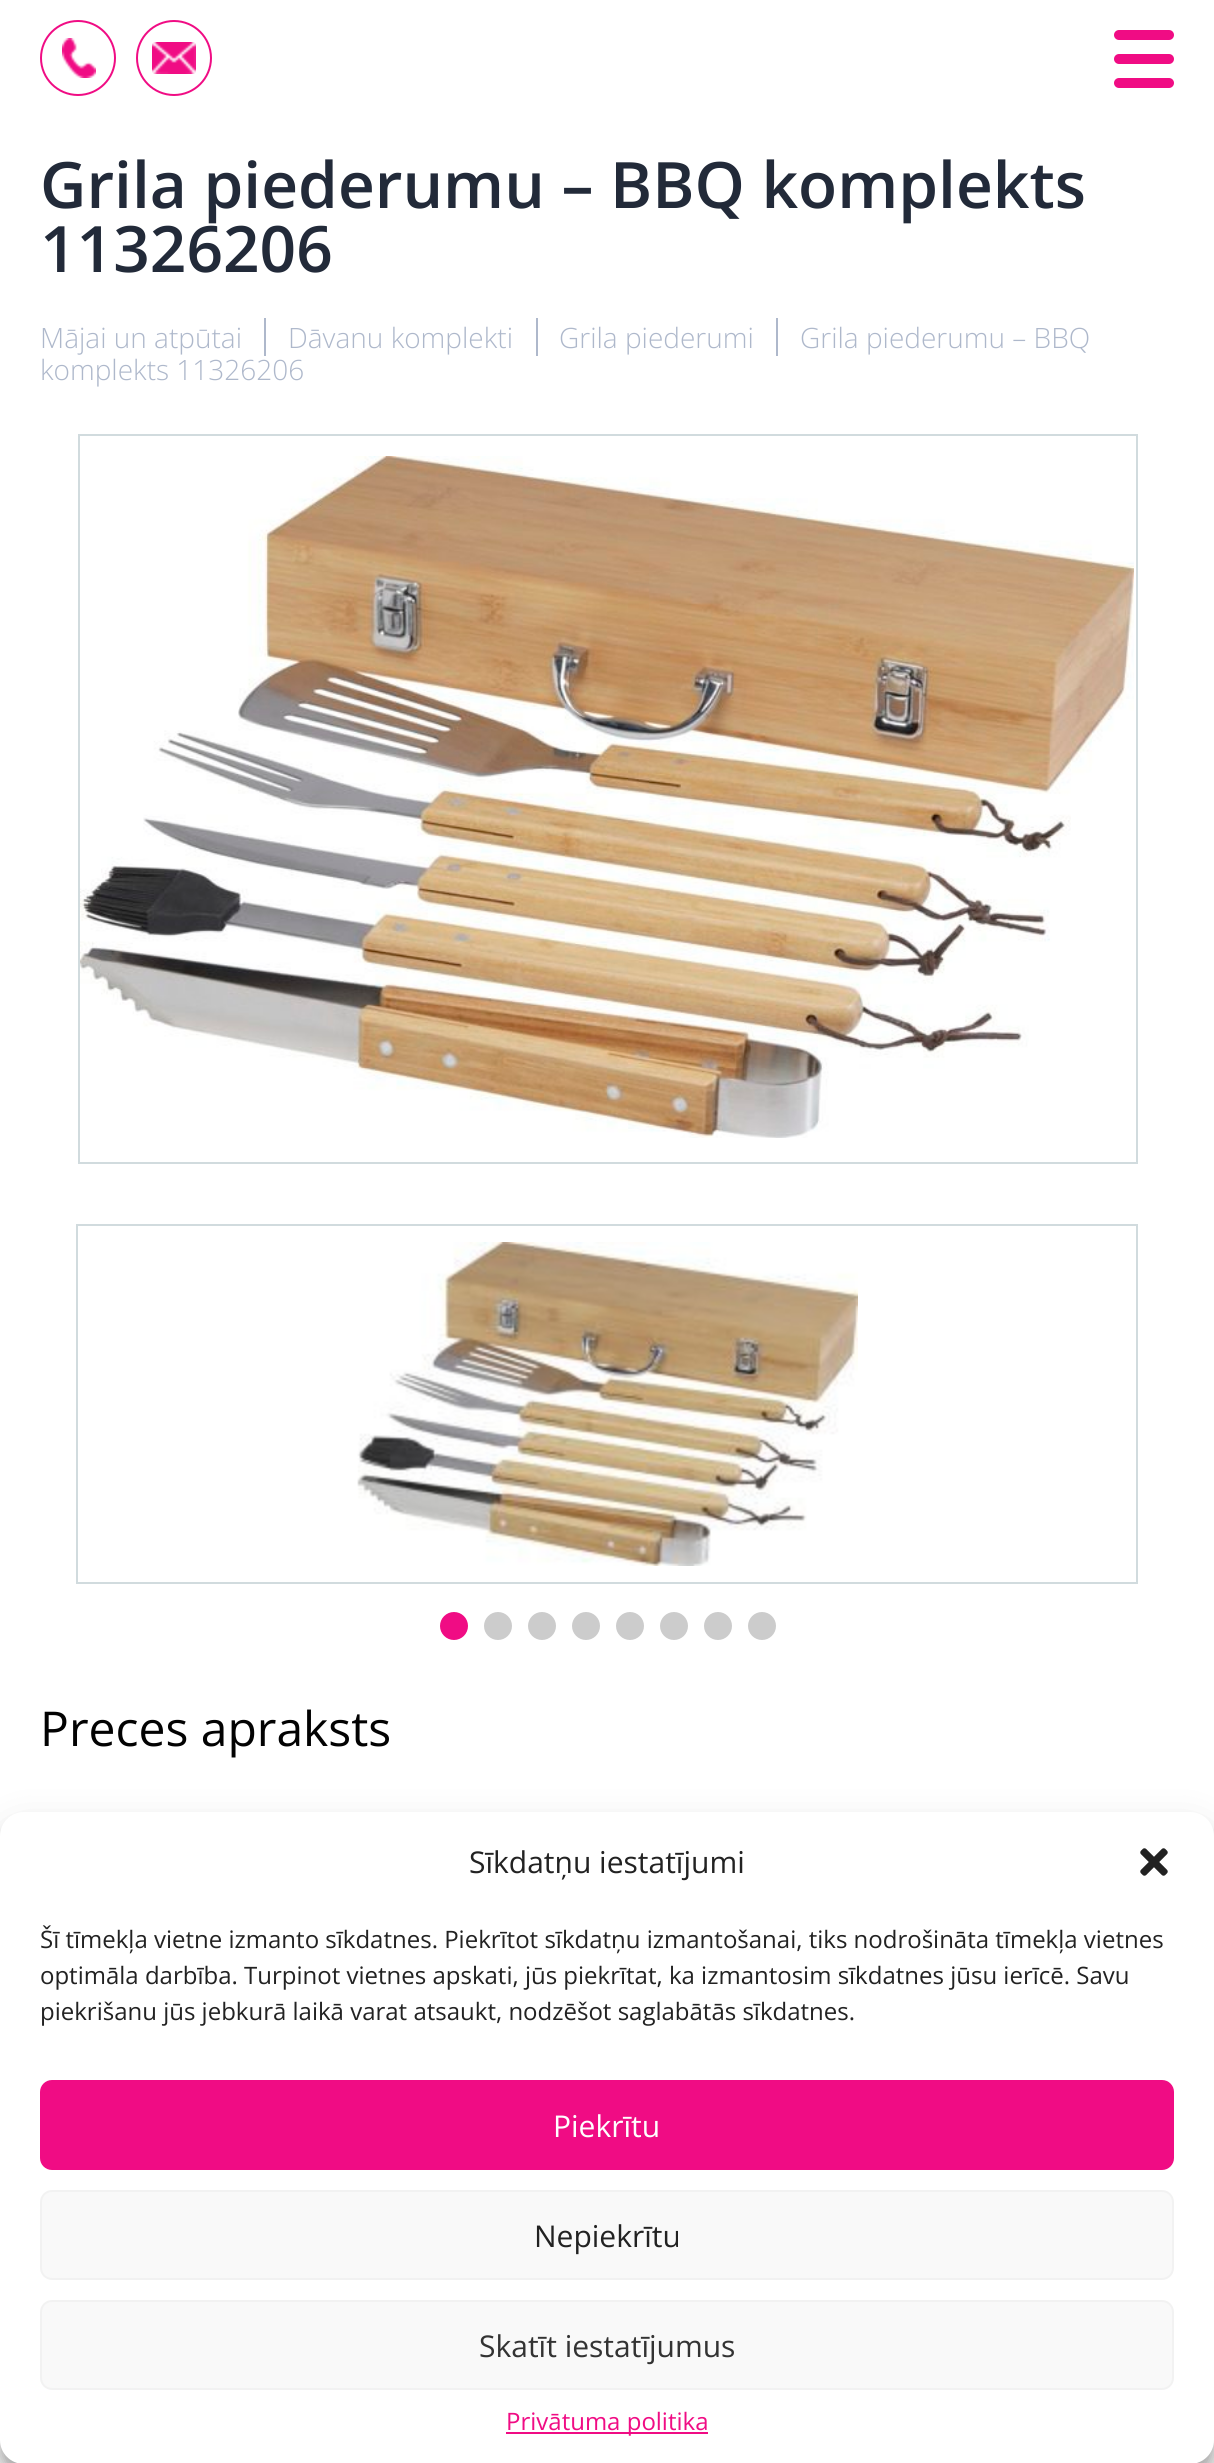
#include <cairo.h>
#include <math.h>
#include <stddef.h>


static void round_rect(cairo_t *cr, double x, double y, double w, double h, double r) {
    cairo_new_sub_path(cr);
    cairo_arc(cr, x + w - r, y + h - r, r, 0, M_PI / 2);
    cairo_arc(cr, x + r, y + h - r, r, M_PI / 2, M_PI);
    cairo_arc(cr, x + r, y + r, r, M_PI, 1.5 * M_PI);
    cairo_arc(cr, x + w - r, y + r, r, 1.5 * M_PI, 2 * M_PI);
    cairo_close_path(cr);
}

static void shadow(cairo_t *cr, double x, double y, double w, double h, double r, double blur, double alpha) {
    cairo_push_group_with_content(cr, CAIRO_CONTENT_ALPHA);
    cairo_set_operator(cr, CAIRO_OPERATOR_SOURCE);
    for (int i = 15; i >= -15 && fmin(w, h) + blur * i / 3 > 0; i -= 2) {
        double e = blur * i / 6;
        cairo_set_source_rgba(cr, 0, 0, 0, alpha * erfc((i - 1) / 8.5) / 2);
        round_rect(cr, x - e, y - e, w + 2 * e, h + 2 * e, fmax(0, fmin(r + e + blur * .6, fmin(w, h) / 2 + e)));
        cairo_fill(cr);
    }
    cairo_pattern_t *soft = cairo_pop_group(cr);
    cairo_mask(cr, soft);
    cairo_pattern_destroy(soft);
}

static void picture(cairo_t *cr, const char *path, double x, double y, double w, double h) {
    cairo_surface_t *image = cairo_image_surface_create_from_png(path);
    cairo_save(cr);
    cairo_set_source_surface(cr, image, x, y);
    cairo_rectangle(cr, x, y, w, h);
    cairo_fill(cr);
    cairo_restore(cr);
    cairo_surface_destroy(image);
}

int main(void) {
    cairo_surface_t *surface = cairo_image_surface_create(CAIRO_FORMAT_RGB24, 1214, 2463);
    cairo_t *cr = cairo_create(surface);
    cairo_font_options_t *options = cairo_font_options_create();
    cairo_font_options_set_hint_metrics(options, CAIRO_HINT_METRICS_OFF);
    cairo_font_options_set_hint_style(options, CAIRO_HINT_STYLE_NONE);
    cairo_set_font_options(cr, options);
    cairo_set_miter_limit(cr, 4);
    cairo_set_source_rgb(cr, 1, 1, 1);
    cairo_paint(cr);
    cairo_arc(cr, 78, 58, 37, 0, 2 * M_PI);
    cairo_set_source_rgb(cr, 0.941, 0.047, 0.518);
    cairo_stroke(cr);
    picture(cr, "img1.png", 62, 38, 34, 40);
    cairo_arc(cr, 174, 58, 37, 0, 2 * M_PI);
    cairo_stroke(cr);
    picture(cr, "img2.png", 152, 42, 44, 32);
    round_rect(cr, 1114, 30, 60, 10, 5);
    cairo_fill(cr);
    round_rect(cr, 1114, 54, 60, 10, 5);
    cairo_fill(cr);
    round_rect(cr, 1114, 78, 60, 10, 5);
    cairo_fill(cr);
    cairo_select_font_face(cr, "Open Sans SemiBold", CAIRO_FONT_SLANT_NORMAL, CAIRO_FONT_WEIGHT_NORMAL);
    cairo_set_font_size(cr, 64);
    cairo_set_source_rgb(cr, 0.133, 0.165, 0.224);
    cairo_move_to(cr, 40, 208);
    cairo_show_text(cr, "Grila piederumu – BBQ komplekts");
    cairo_move_to(cr, 40, 272);
    cairo_show_text(cr, "11326206");
    cairo_select_font_face(cr, "Open Sans Light", CAIRO_FONT_SLANT_NORMAL, CAIRO_FONT_WEIGHT_NORMAL);
    cairo_set_font_size(cr, 28);
    cairo_set_source_rgb(cr, 0.682, 0.722, 0.796);
    cairo_move_to(cr, 40, 348);
    cairo_show_text(cr, "Mājai un atpūtai");
    cairo_move_to(cr, 288, 348);
    cairo_show_text(cr, "Dāvanu komplekti");
    cairo_rectangle(cr, 264, 318, 2, 38);
    cairo_fill(cr);
    cairo_move_to(cr, 559, 348);
    cairo_show_text(cr, "Grila piederumi");
    cairo_rectangle(cr, 536, 318, 2, 38);
    cairo_fill(cr);
    cairo_move_to(cr, 800, 348);
    cairo_show_text(cr, "Grila piederumu – BBQ");
    cairo_rectangle(cr, 776, 318, 2, 38);
    cairo_fill(cr);
    cairo_move_to(cr, 40, 380);
    cairo_show_text(cr, "komplekts 11326206");
    cairo_rectangle(cr, 79, 435, 1058, 728);
    cairo_set_source_rgb(cr, 0.82, 0.859, 0.871);
    cairo_stroke(cr);
    picture(cr, "img3.png", 80, 456, 1054, 682);
    cairo_rectangle(cr, 77, 1225, 1060, 358);
    cairo_stroke(cr);
    picture(cr, "img4.png", 357, 1242, 501, 324);
    cairo_set_source_rgb(cr, 0.941, 0.047, 0.518);
    cairo_arc(cr, 454, 1626, 14, 0, 2 * M_PI);
    cairo_fill(cr);
    cairo_set_source_rgb(cr, 0.8, 0.8, 0.8);
    cairo_arc(cr, 498, 1626, 14, 0, 2 * M_PI);
    cairo_fill(cr);
    cairo_arc(cr, 542, 1626, 14, 0, 2 * M_PI);
    cairo_fill(cr);
    cairo_arc(cr, 586, 1626, 14, 0, 2 * M_PI);
    cairo_fill(cr);
    cairo_arc(cr, 630, 1626, 14, 0, 2 * M_PI);
    cairo_fill(cr);
    cairo_arc(cr, 674, 1626, 14, 0, 2 * M_PI);
    cairo_fill(cr);
    cairo_arc(cr, 718, 1626, 14, 0, 2 * M_PI);
    cairo_fill(cr);
    cairo_arc(cr, 762, 1626, 14, 0, 2 * M_PI);
    cairo_fill(cr);
    cairo_select_font_face(cr, "Open Sans", CAIRO_FONT_SLANT_NORMAL, CAIRO_FONT_WEIGHT_NORMAL);
    cairo_set_font_size(cr, 48);
    cairo_set_source_rgb(cr, 0.008, 0.008, 0.008);
    cairo_move_to(cr, 40, 1746);
    cairo_show_text(cr, "Preces apraksts");
    cairo_set_source_rgb(cr, 0, 0, 0);
    shadow(cr, 0, 1824, 1214, 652, 24, 6, 0.23);
    shadow(cr, 0, 1832, 1214, 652, 24, 20, 0.19);
    cairo_set_source_rgb(cr, 1, 1, 1);
    round_rect(cr, 0, 1812, 1214, 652, 24);
    cairo_fill(cr);
    cairo_set_font_size(cr, 30);
    cairo_set_source_rgb(cr, 0.133, 0.133, 0.133);
    cairo_move_to(cr, 469, 1873);
    cairo_show_text(cr, "Sīkdatņu iestatījumi");
    picture(cr, "img5.png", 1140, 1848, 28, 28);
    cairo_set_font_size(cr, 24);
    cairo_move_to(cr, 40, 1948);
    cairo_show_text(cr, "Šī tīmekļa vietne izmanto sīkdatnes. Piekrītot sīkdatņu izmantošanai, tiks nodrošināta tīmekļa vietnes");
    cairo_move_to(cr, 40, 1984);
    cairo_show_text(cr, "optimāla darbība. Turpinot vietnes apskati, jūs piekrītat, ka izmantosim sīkdatnes jūsu ierīcē. Savu");
    cairo_move_to(cr, 40, 2020);
    cairo_show_text(cr, "piekrišanu jūs jebkurā laikā varat atsaukt, nodzēšot saglabātās sīkdatnes.");
    cairo_set_source_rgb(cr, 0.941, 0.047, 0.518);
    round_rect(cr, 41, 2081, 1132, 88, 11);
    cairo_fill_preserve(cr);
    cairo_stroke(cr);
    cairo_set_font_size(cr, 30);
    cairo_set_source_rgb(cr, 1, 1, 1);
    cairo_move_to(cr, 553, 2137);
    cairo_show_text(cr, "Piekrītu");
    cairo_set_source_rgb(cr, 0.976, 0.976, 0.976);
    round_rect(cr, 41, 2191, 1132, 88, 11);
    cairo_fill_preserve(cr);
    cairo_set_source_rgb(cr, 0.949, 0.949, 0.949);
    cairo_stroke(cr);
    cairo_set_source_rgb(cr, 0.133, 0.133, 0.133);
    cairo_move_to(cr, 534, 2247);
    cairo_show_text(cr, "Nepiekrītu");
    cairo_set_source_rgb(cr, 0.976, 0.976, 0.976);
    round_rect(cr, 41, 2301, 1132, 88, 11);
    cairo_fill_preserve(cr);
    cairo_set_source_rgb(cr, 0.949, 0.949, 0.949);
    cairo_stroke(cr);
    cairo_set_source_rgb(cr, 0.2, 0.2, 0.2);
    cairo_move_to(cr, 479, 2357);
    cairo_show_text(cr, "Skatīt iestatījumus");
    cairo_set_source_rgb(cr, 0.941, 0.047, 0.518);
    cairo_rectangle(cr, 506, 2432, 202, 2);
    cairo_fill(cr);
    cairo_set_font_size(cr, 24);
    cairo_move_to(cr, 506, 2430);
    cairo_show_text(cr, "Privātuma politika");
    cairo_surface_write_to_png(surface, "page.png");
    cairo_font_options_destroy(options);
    cairo_destroy(cr);
    cairo_surface_destroy(surface);
    return 0;
}
